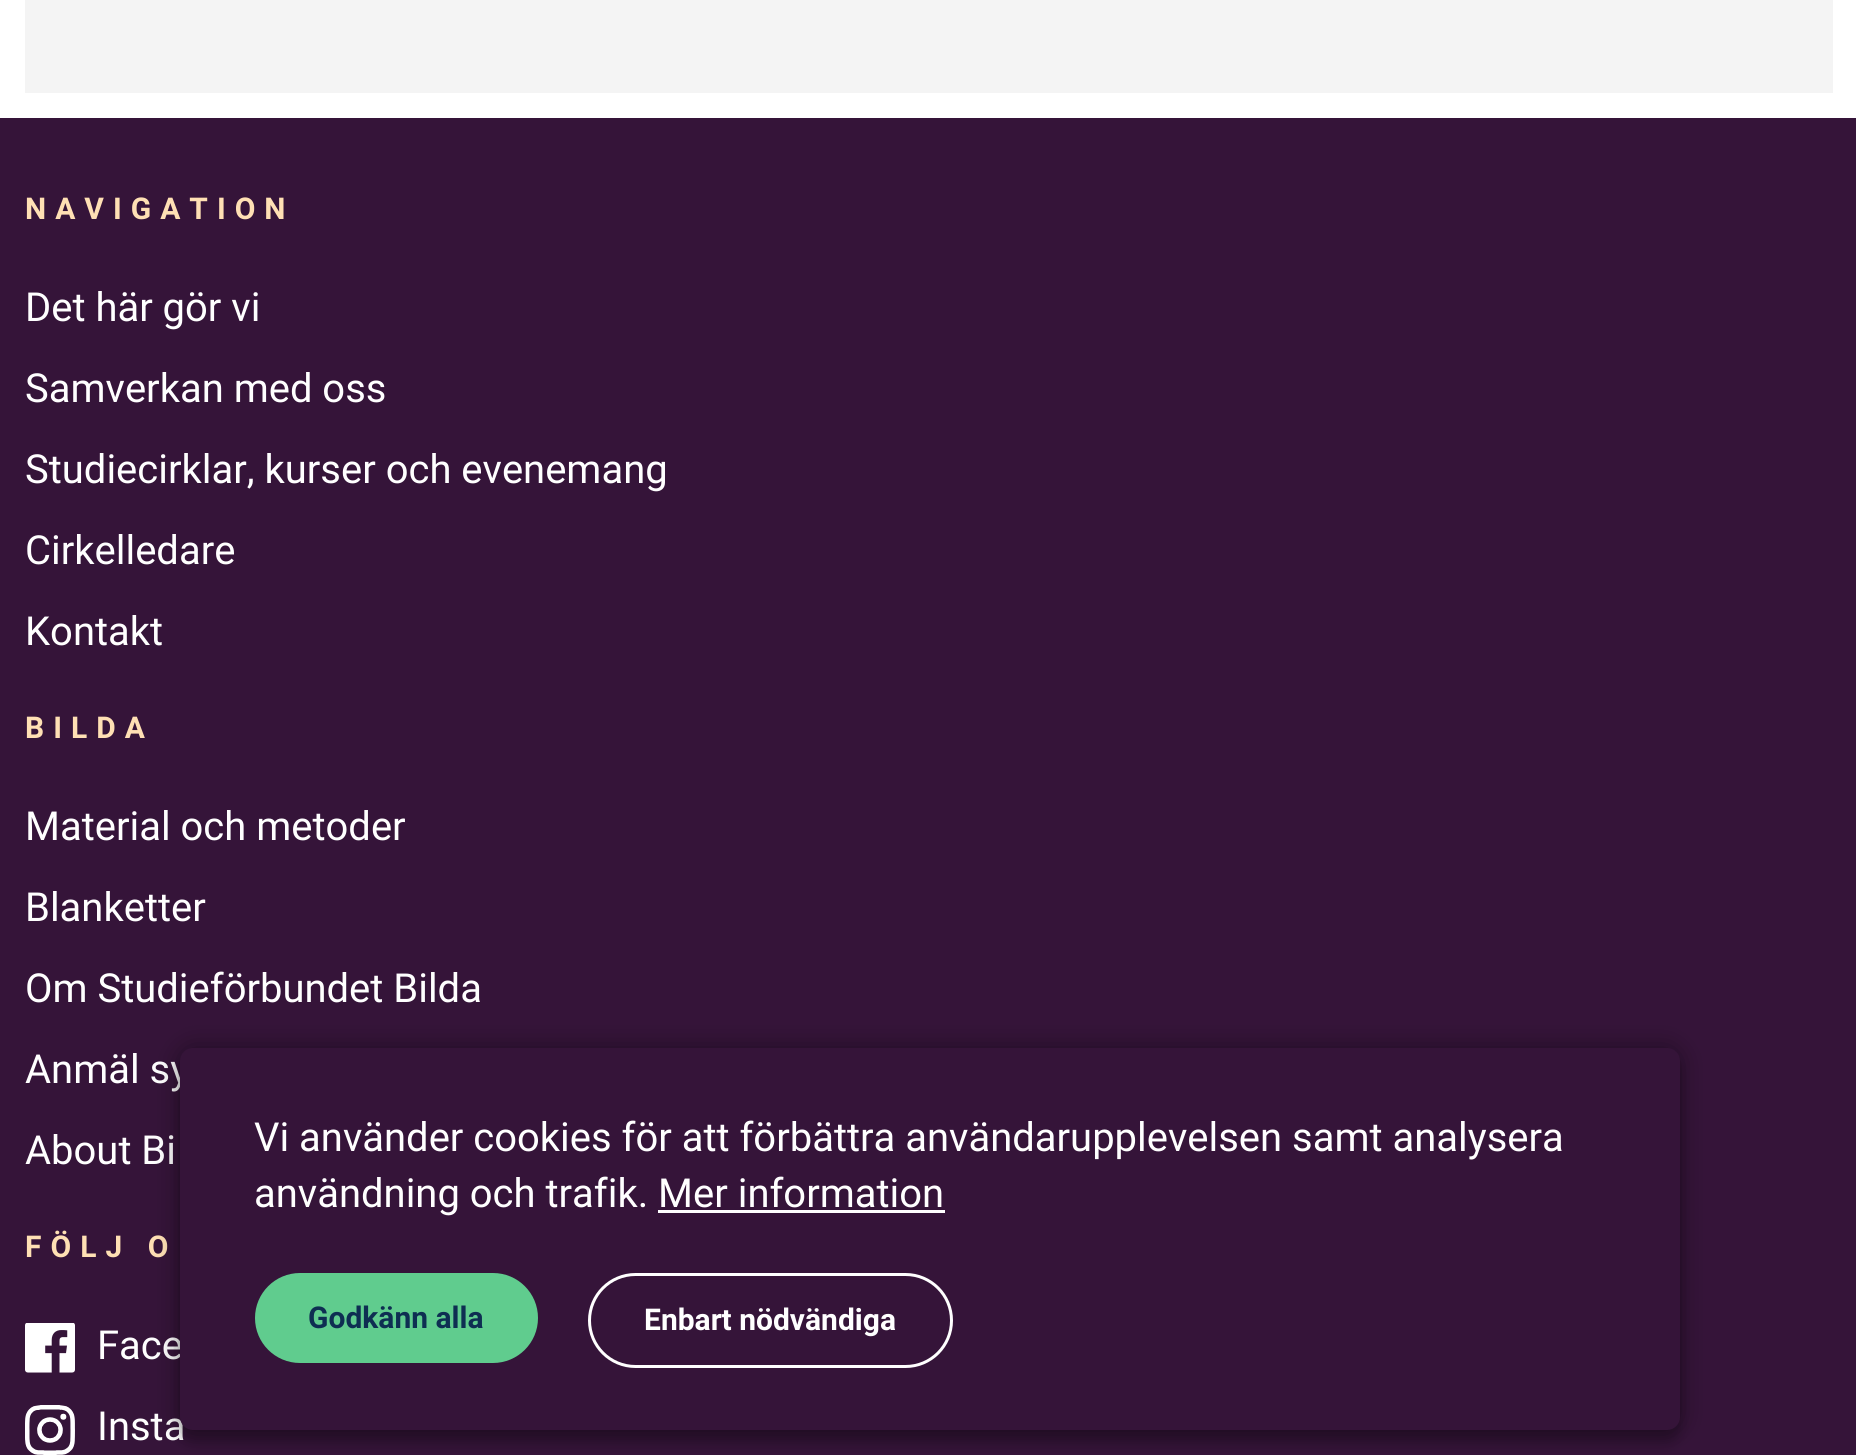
#include <cairo.h>
#include <math.h>
#include <stddef.h>


static void spaced_text(cairo_t *cr, double x, double y, const char *s, double letter, double word) {
    cairo_move_to(cr, x, y);
    while (*s) {
        char ch[5] = {0};
        int n = 0;
        do ch[n++] = *s++; while ((*s & 0xC0) == 0x80);
        cairo_show_text(cr, ch);
        cairo_rel_move_to(cr, letter + word * (*ch == ' '), 0);
    }
}

static void round_rect(cairo_t *cr, double x, double y, double w, double h, double r) {
    cairo_new_sub_path(cr);
    cairo_arc(cr, x + w - r, y + h - r, r, 0, M_PI / 2);
    cairo_arc(cr, x + r, y + h - r, r, M_PI / 2, M_PI);
    cairo_arc(cr, x + r, y + r, r, M_PI, 1.5 * M_PI);
    cairo_arc(cr, x + w - r, y + r, r, 1.5 * M_PI, 2 * M_PI);
    cairo_close_path(cr);
}

static void shadow(cairo_t *cr, double x, double y, double w, double h, double r, double blur, double alpha) {
    cairo_push_group_with_content(cr, CAIRO_CONTENT_ALPHA);
    cairo_set_operator(cr, CAIRO_OPERATOR_SOURCE);
    for (int i = 15; i >= -15 && fmin(w, h) + blur * i / 3 > 0; i -= 2) {
        double e = blur * i / 6;
        cairo_set_source_rgba(cr, 0, 0, 0, alpha * erfc((i - 1) / 8.5) / 2);
        round_rect(cr, x - e, y - e, w + 2 * e, h + 2 * e, fmax(0, fmin(r + e + blur * .6, fmin(w, h) / 2 + e)));
        cairo_fill(cr);
    }
    cairo_pattern_t *soft = cairo_pop_group(cr);
    cairo_mask(cr, soft);
    cairo_pattern_destroy(soft);
}

static void picture(cairo_t *cr, const char *path, double x, double y, double w, double h) {
    cairo_surface_t *image = cairo_image_surface_create_from_png(path);
    cairo_save(cr);
    cairo_set_source_surface(cr, image, x, y);
    cairo_rectangle(cr, x, y, w, h);
    cairo_fill(cr);
    cairo_restore(cr);
    cairo_surface_destroy(image);
}

int main(void) {
    cairo_surface_t *surface = cairo_image_surface_create(CAIRO_FORMAT_RGB24, 1856, 1455);
    cairo_t *cr = cairo_create(surface);
    cairo_font_options_t *options = cairo_font_options_create();
    cairo_font_options_set_hint_metrics(options, CAIRO_HINT_METRICS_OFF);
    cairo_font_options_set_hint_style(options, CAIRO_HINT_STYLE_NONE);
    cairo_set_font_options(cr, options);
    cairo_set_miter_limit(cr, 4);
    cairo_set_source_rgb(cr, 1, 1, 1);
    cairo_paint(cr);
    cairo_set_source_rgb(cr, 0.957, 0.957, 0.957);
    cairo_rectangle(cr, 25, 0, 1808, 93);
    cairo_fill(cr);
    cairo_set_source_rgb(cr, 0.208, 0.082, 0.224);
    cairo_rectangle(cr, 0, 118, 1856, 1337);
    cairo_fill(cr);
    cairo_select_font_face(cr, "Roboto", CAIRO_FONT_SLANT_NORMAL, CAIRO_FONT_WEIGHT_BOLD);
    cairo_set_font_size(cr, 30);
    cairo_set_source_rgb(cr, 1, 0.878, 0.706);
    spaced_text(cr, 25, 219, "NAVIGATION", 9, 0);
    cairo_select_font_face(cr, "Roboto", CAIRO_FONT_SLANT_NORMAL, CAIRO_FONT_WEIGHT_NORMAL);
    cairo_set_font_size(cr, 40);
    cairo_set_source_rgb(cr, 1, 1, 1);
    cairo_move_to(cr, 25, 321);
    cairo_show_text(cr, "Det här gör vi");
    cairo_move_to(cr, 25, 402);
    cairo_show_text(cr, "Samverkan med oss");
    cairo_move_to(cr, 25, 483);
    cairo_show_text(cr, "Studiecirklar, kurser och evenemang");
    cairo_move_to(cr, 25, 564);
    cairo_show_text(cr, "Cirkelledare");
    cairo_move_to(cr, 25, 645);
    cairo_show_text(cr, "Kontakt");
    cairo_select_font_face(cr, "Roboto", CAIRO_FONT_SLANT_NORMAL, CAIRO_FONT_WEIGHT_BOLD);
    cairo_set_font_size(cr, 30);
    cairo_set_source_rgb(cr, 1, 0.878, 0.706);
    spaced_text(cr, 25, 738, "BILDA", 9, 0);
    cairo_select_font_face(cr, "Roboto", CAIRO_FONT_SLANT_NORMAL, CAIRO_FONT_WEIGHT_NORMAL);
    cairo_set_font_size(cr, 40);
    cairo_set_source_rgb(cr, 1, 1, 1);
    cairo_move_to(cr, 25, 840);
    cairo_show_text(cr, "Material och metoder");
    cairo_move_to(cr, 25, 921);
    cairo_show_text(cr, "Blanketter");
    cairo_move_to(cr, 25, 1002);
    cairo_show_text(cr, "Om Studieförbundet Bilda");
    cairo_move_to(cr, 25, 1083);
    cairo_show_text(cr, "Anmäl sy");
    cairo_move_to(cr, 25, 1164);
    cairo_show_text(cr, "About Bi");
    cairo_select_font_face(cr, "Roboto", CAIRO_FONT_SLANT_NORMAL, CAIRO_FONT_WEIGHT_BOLD);
    cairo_set_font_size(cr, 30);
    cairo_set_source_rgb(cr, 1, 0.878, 0.706);
    spaced_text(cr, 25, 1257, "FÖLJ O", 9, 0);
    picture(cr, "img1.png", 25, 1323, 50, 50);
    cairo_select_font_face(cr, "Roboto", CAIRO_FONT_SLANT_NORMAL, CAIRO_FONT_WEIGHT_NORMAL);
    cairo_set_font_size(cr, 40);
    cairo_set_source_rgb(cr, 1, 1, 1);
    cairo_move_to(cr, 97, 1359);
    cairo_show_text(cr, "Face");
    picture(cr, "img2.png", 25, 1405, 50, 50);
    cairo_move_to(cr, 97, 1440);
    cairo_show_text(cr, "Insta");
    cairo_set_source_rgb(cr, 0, 0, 0);
    shadow(cr, 180, 1060, 1500, 383, 13, 6, 0.2);
    shadow(cr, 180, 1048, 1500, 382, 13, 12.5, 0.4);
    cairo_set_source_rgb(cr, 0.208, 0.082, 0.224);
    round_rect(cr, 180, 1048, 1500, 382, 13);
    cairo_fill(cr);
    cairo_set_source_rgb(cr, 1, 1, 1);
    cairo_move_to(cr, 254, 1151);
    cairo_show_text(cr, "Vi använder cookies för att förbättra användarupplevelsen samt analysera");
    cairo_move_to(cr, 254, 1207);
    cairo_show_text(cr, "användning och trafik. Mer information");
    cairo_rectangle(cr, 658, 1210, 287, 3);
    cairo_fill(cr);
    cairo_set_source_rgb(cr, 0.376, 0.8, 0.557);
    round_rect(cr, 255, 1273, 283, 90, 45);
    cairo_fill(cr);
    cairo_select_font_face(cr, "Roboto", CAIRO_FONT_SLANT_NORMAL, CAIRO_FONT_WEIGHT_BOLD);
    cairo_set_font_size(cr, 30);
    cairo_set_source_rgb(cr, 0.055, 0.18, 0.322);
    cairo_move_to(cr, 308, 1328);
    cairo_show_text(cr, "Godkänn alla");
    round_rect(cr, 589.5, 1274.5, 362, 92, 46);
    cairo_set_source_rgb(cr, 1, 1, 1);
    cairo_set_line_width(cr, 3);
    cairo_stroke(cr);
    cairo_move_to(cr, 644, 1330);
    cairo_show_text(cr, "Enbart nödvändiga");
    cairo_surface_write_to_png(surface, "page.png");
    cairo_font_options_destroy(options);
    cairo_destroy(cr);
    cairo_surface_destroy(surface);
    return 0;
}
